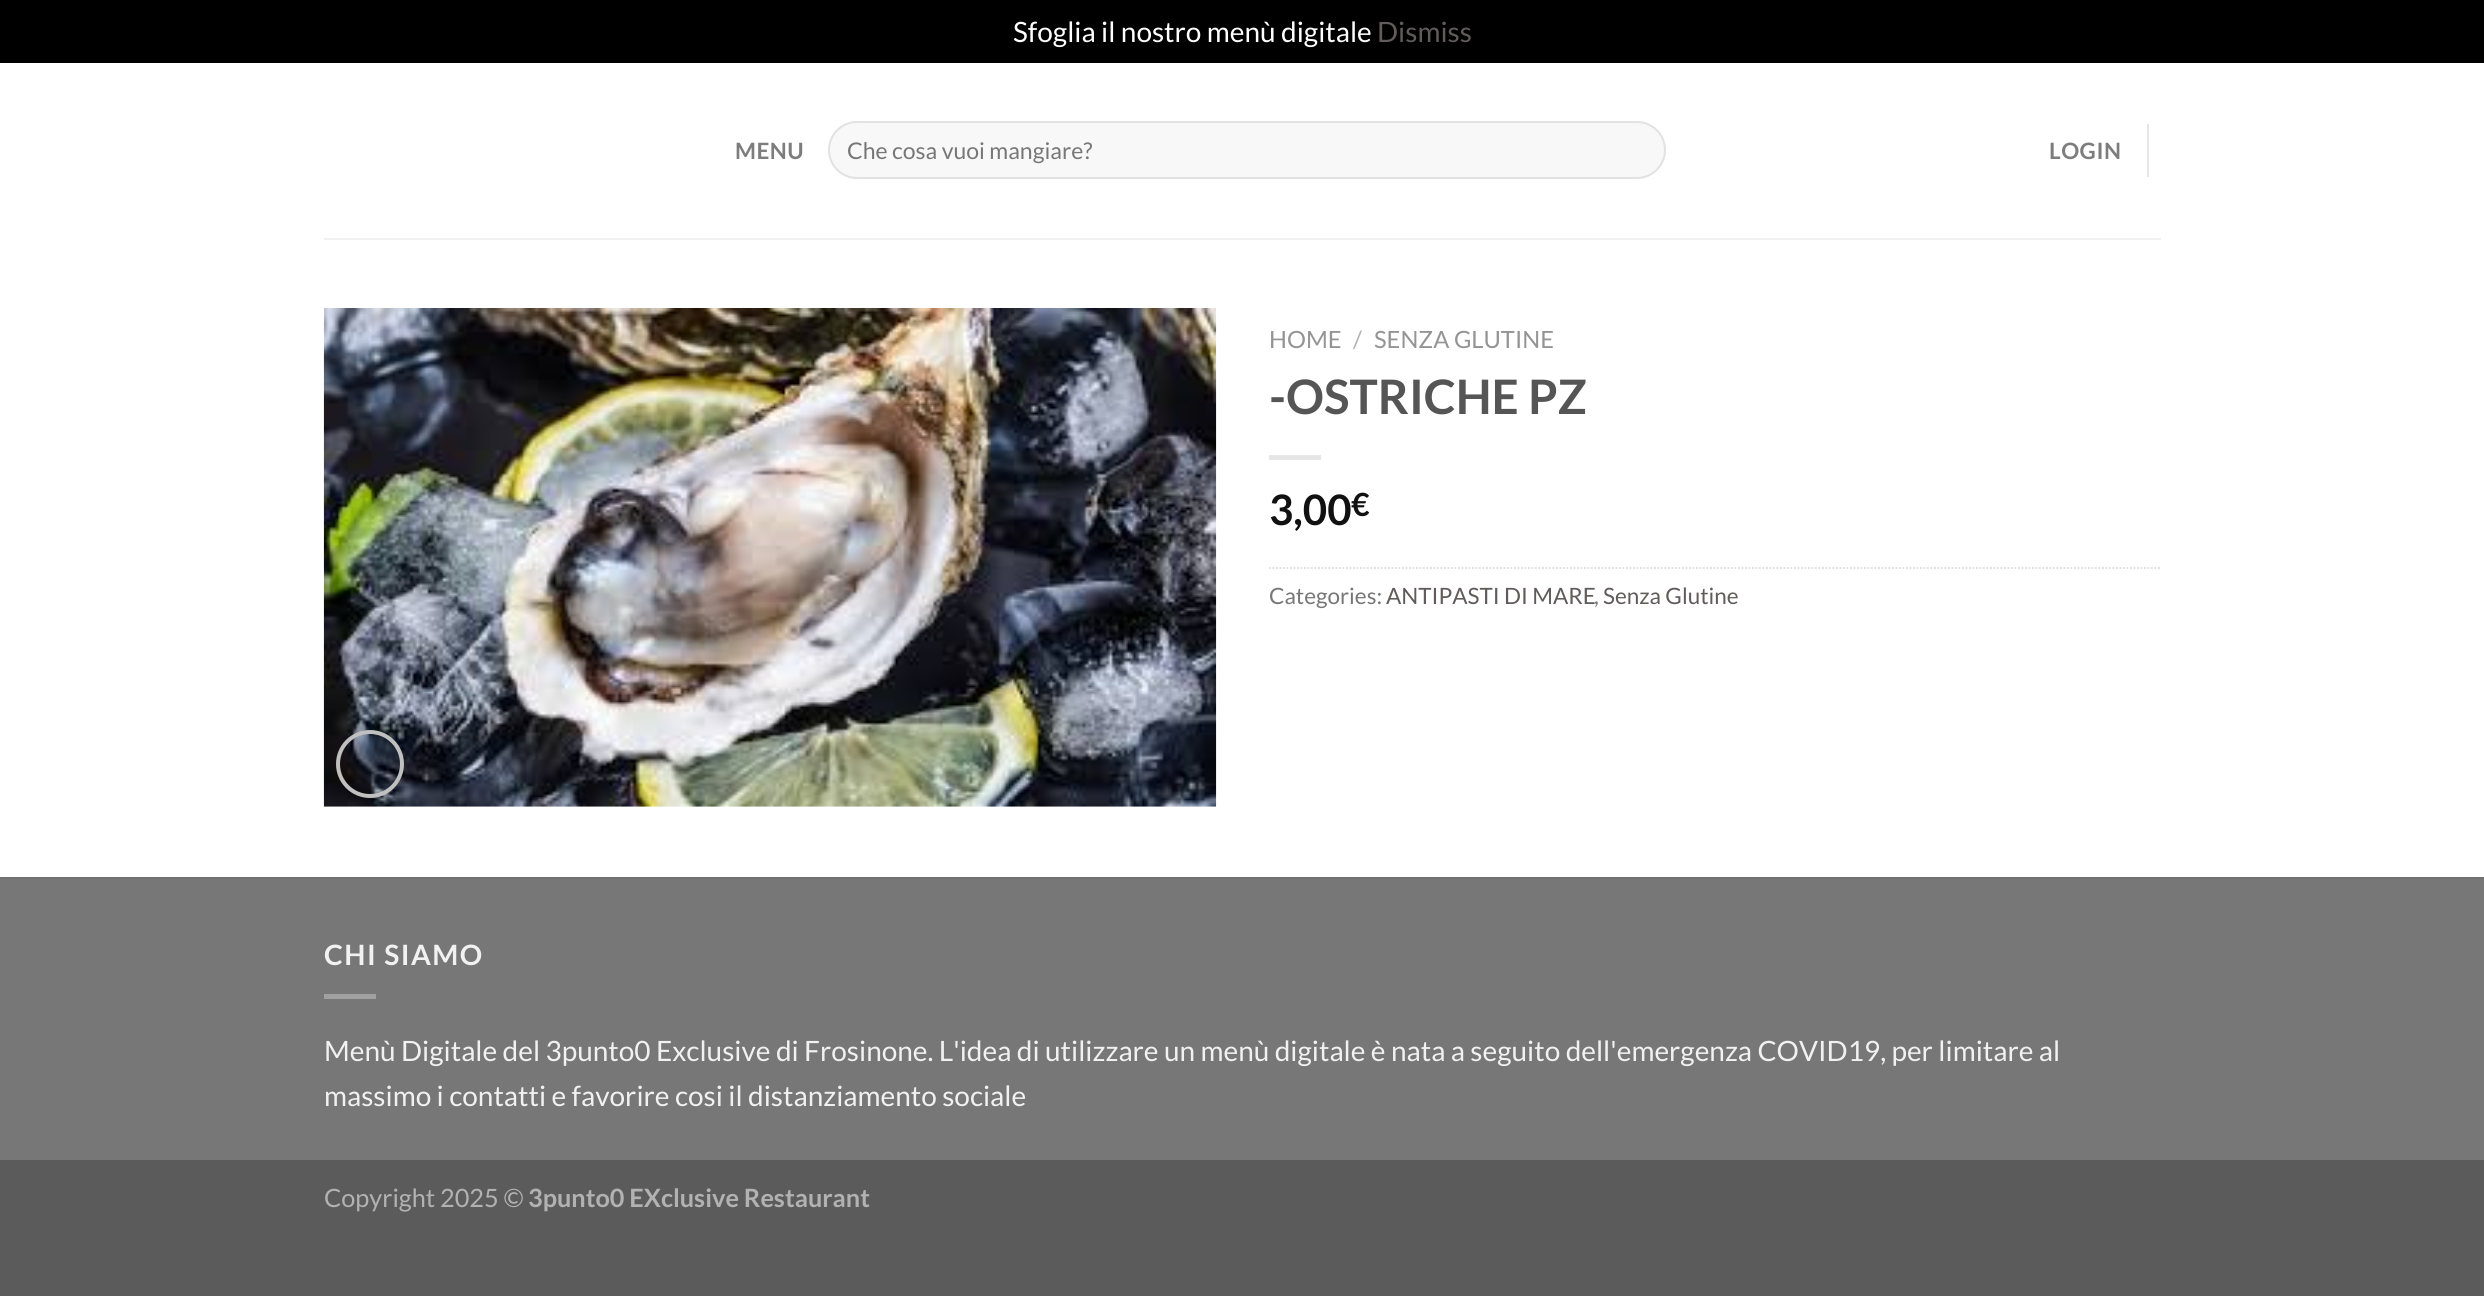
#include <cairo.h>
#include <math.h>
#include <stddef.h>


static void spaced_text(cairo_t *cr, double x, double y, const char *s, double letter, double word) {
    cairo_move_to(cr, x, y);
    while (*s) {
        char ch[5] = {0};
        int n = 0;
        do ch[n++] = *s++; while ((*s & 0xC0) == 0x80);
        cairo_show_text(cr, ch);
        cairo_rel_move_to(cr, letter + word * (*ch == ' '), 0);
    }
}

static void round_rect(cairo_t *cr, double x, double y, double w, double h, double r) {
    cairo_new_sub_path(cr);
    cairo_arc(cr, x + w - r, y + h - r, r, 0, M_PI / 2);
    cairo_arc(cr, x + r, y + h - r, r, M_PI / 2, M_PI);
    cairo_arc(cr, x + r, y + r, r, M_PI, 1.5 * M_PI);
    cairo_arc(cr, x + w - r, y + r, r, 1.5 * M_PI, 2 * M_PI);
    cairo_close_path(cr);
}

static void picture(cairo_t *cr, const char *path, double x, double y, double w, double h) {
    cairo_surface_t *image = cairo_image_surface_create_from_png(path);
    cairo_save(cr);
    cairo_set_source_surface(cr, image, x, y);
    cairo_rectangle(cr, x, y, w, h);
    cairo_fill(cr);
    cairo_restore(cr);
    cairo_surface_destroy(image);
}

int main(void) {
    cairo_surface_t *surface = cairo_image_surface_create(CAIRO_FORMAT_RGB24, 2484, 1296);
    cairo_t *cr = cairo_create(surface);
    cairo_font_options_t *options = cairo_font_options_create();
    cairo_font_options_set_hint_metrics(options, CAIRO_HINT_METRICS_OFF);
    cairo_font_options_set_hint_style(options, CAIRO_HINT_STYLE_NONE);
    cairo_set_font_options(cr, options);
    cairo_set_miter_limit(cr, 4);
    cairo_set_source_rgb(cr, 0.357, 0.357, 0.357);
    cairo_paint(cr);
    cairo_set_source_rgb(cr, 0, 0, 0);
    cairo_rectangle(cr, 0, 0, 2484, 63);
    cairo_fill(cr);
    cairo_select_font_face(cr, "Lato", CAIRO_FONT_SLANT_NORMAL, CAIRO_FONT_WEIGHT_NORMAL);
    cairo_set_font_size(cr, 28);
    cairo_set_source_rgb(cr, 1, 1, 1);
    cairo_move_to(cr, 1013, 42);
    cairo_show_text(cr, "Sfoglia il nostro menù digitale");
    cairo_set_source_rgb(cr, 0.38, 0.357, 0.357);
    cairo_move_to(cr, 1377, 42);
    cairo_show_text(cr, "Dismiss");
    cairo_set_source_rgb(cr, 1, 1, 1);
    cairo_rectangle(cr, 0, 63, 2484, 814);
    cairo_fill(cr);
    cairo_select_font_face(cr, "Lato", CAIRO_FONT_SLANT_NORMAL, CAIRO_FONT_WEIGHT_BOLD);
    cairo_set_font_size(cr, 22.5);
    cairo_set_source_rgb(cr, 0.49, 0.49, 0.49);
    spaced_text(cr, 735, 159, "MENU", 0.5, 0);
    cairo_set_source_rgb(cr, 0.969, 0.969, 0.969);
    round_rect(cr, 828, 121, 838, 58, 29);
    cairo_fill(cr);
    round_rect(cr, 829, 122, 836, 56, 28);
    cairo_set_source_rgba(cr, 0, 0, 0, 0.09);
    cairo_stroke(cr);
    cairo_select_font_face(cr, "Lato", CAIRO_FONT_SLANT_NORMAL, CAIRO_FONT_WEIGHT_NORMAL);
    cairo_set_font_size(cr, 23);
    cairo_set_source_rgb(cr, 0.467, 0.467, 0.467);
    cairo_move_to(cr, 847, 159);
    cairo_show_text(cr, "Che cosa vuoi mangiare?");
    cairo_select_font_face(cr, "Lato", CAIRO_FONT_SLANT_NORMAL, CAIRO_FONT_WEIGHT_BOLD);
    cairo_set_font_size(cr, 22.5);
    cairo_set_source_rgb(cr, 0.49, 0.49, 0.49);
    spaced_text(cr, 2049, 159, "LOGIN", 0.5, 0);
    cairo_set_source_rgb(cr, 0.902, 0.902, 0.902);
    cairo_rectangle(cr, 2147, 124, 2, 53);
    cairo_fill(cr);
    cairo_set_source_rgb(cr, 0.945, 0.945, 0.945);
    cairo_rectangle(cr, 324, 238, 1837, 2);
    cairo_fill(cr);
    picture(cr, "img1.png", 323, 308, 894, 499);
    cairo_arc(cr, 370, 764, 32, 0, 2 * M_PI);
    cairo_set_source_rgb(cr, 0.753, 0.753, 0.753);
    cairo_set_line_width(cr, 4);
    cairo_stroke(cr);
    cairo_select_font_face(cr, "Lato", CAIRO_FONT_SLANT_NORMAL, CAIRO_FONT_WEIGHT_NORMAL);
    cairo_set_font_size(cr, 23.75);
    cairo_set_source_rgb(cr, 0.58, 0.58, 0.58);
    cairo_move_to(cr, 1269, 348);
    cairo_show_text(cr, "HOME");
    cairo_set_source_rgb(cr, 0.698, 0.698, 0.698);
    cairo_move_to(cr, 1353, 348);
    cairo_show_text(cr, "/");
    cairo_set_source_rgb(cr, 0.58, 0.58, 0.58);
    cairo_move_to(cr, 1374, 348);
    cairo_show_text(cr, "SENZA GLUTINE");
    cairo_select_font_face(cr, "Lato", CAIRO_FONT_SLANT_NORMAL, CAIRO_FONT_WEIGHT_BOLD);
    cairo_set_font_size(cr, 47.5);
    cairo_set_source_rgb(cr, 0.333, 0.333, 0.333);
    cairo_move_to(cr, 1269, 414);
    cairo_show_text(cr, "-OSTRICHE PZ");
    cairo_set_source_rgb(cr, 0.902, 0.902, 0.902);
    cairo_rectangle(cr, 1269, 455, 52, 5);
    cairo_fill(cr);
    cairo_set_font_size(cr, 42);
    cairo_set_source_rgb(cr, 0.067, 0.067, 0.067);
    cairo_move_to(cr, 1269, 525);
    cairo_show_text(cr, "3,00");
    cairo_set_font_size(cr, 32);
    cairo_move_to(cr, 1351, 516);
    cairo_show_text(cr, "€");
    cairo_new_path(cr);
    cairo_move_to(cr, 1269, 568);
    cairo_line_to(cr, 2161, 568);
    cairo_set_source_rgb(cr, 0.867, 0.867, 0.867);
    cairo_set_line_width(cr, 1.8);
    cairo_set_dash(cr, (double[]){1.75, 1.75}, 2, 0);
    cairo_stroke(cr);
    cairo_select_font_face(cr, "Lato", CAIRO_FONT_SLANT_NORMAL, CAIRO_FONT_WEIGHT_NORMAL);
    cairo_set_font_size(cr, 22.5);
    cairo_set_source_rgb(cr, 0.467, 0.467, 0.467);
    cairo_move_to(cr, 1269, 604);
    cairo_show_text(cr, "Categories:");
    cairo_set_source_rgb(cr, 0.38, 0.357, 0.357);
    cairo_move_to(cr, 1386, 604);
    cairo_show_text(cr, "ANTIPASTI DI MARE");
    cairo_set_source_rgb(cr, 0.467, 0.467, 0.467);
    cairo_move_to(cr, 1594, 604);
    cairo_show_text(cr, ",");
    cairo_set_source_rgb(cr, 0.38, 0.357, 0.357);
    cairo_move_to(cr, 1603, 604);
    cairo_show_text(cr, "Senza Glutine");
    cairo_set_source_rgb(cr, 0.467, 0.467, 0.467);
    cairo_rectangle(cr, 0, 879, 2484, 281);
    cairo_fill(cr);
    cairo_set_source_rgb(cr, 0.443, 0.443, 0.443);
    cairo_rectangle(cr, 0, 877, 2484, 2);
    cairo_fill(cr);
    cairo_select_font_face(cr, "Lato", CAIRO_FONT_SLANT_NORMAL, CAIRO_FONT_WEIGHT_BOLD);
    cairo_set_font_size(cr, 28);
    cairo_set_source_rgb(cr, 0.945, 0.945, 0.945);
    spaced_text(cr, 324, 965, "CHI SIAMO", 1.5, 0);
    cairo_set_source_rgb(cr, 0.627, 0.627, 0.627);
    cairo_rectangle(cr, 324, 994, 52, 5);
    cairo_fill(cr);
    cairo_select_font_face(cr, "Lato", CAIRO_FONT_SLANT_NORMAL, CAIRO_FONT_WEIGHT_NORMAL);
    cairo_set_source_rgb(cr, 0.945, 0.945, 0.945);
    cairo_move_to(cr, 324, 1061);
    cairo_show_text(cr, "Menù Digitale del 3punto0 Exclusive di Frosinone. L'idea di utilizzare un menù digitale è nata a seguito dell'emergenza COVID19, per limitare al");
    cairo_move_to(cr, 324, 1106);
    cairo_show_text(cr, "massimo i contatti e favorire cosi il distanziamento sociale");
    cairo_set_font_size(cr, 25.25);
    cairo_set_source_rgb(cr, 0.698, 0.698, 0.698);
    cairo_move_to(cr, 324, 1207);
    cairo_show_text(cr, "Copyright 2025 ©");
    cairo_select_font_face(cr, "Lato", CAIRO_FONT_SLANT_NORMAL, CAIRO_FONT_WEIGHT_BOLD);
    cairo_move_to(cr, 528, 1207);
    cairo_show_text(cr, "3punto0 EXclusive Restaurant");
    cairo_surface_write_to_png(surface, "page.png");
    cairo_font_options_destroy(options);
    cairo_destroy(cr);
    cairo_surface_destroy(surface);
    return 0;
}
